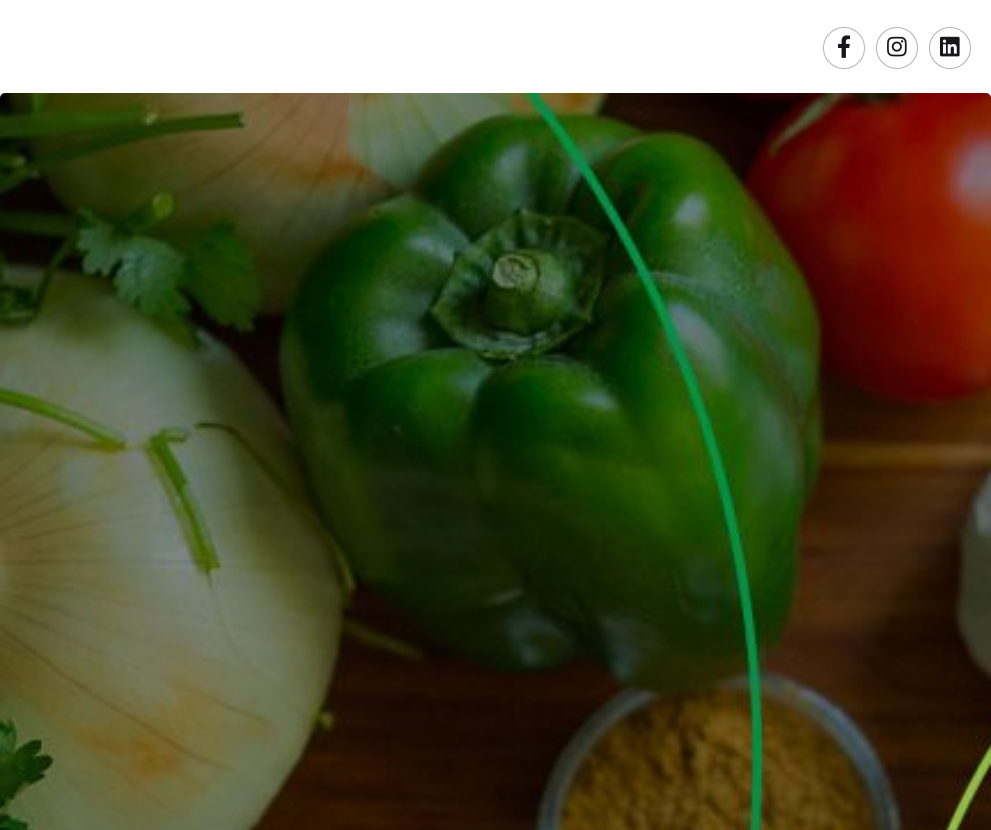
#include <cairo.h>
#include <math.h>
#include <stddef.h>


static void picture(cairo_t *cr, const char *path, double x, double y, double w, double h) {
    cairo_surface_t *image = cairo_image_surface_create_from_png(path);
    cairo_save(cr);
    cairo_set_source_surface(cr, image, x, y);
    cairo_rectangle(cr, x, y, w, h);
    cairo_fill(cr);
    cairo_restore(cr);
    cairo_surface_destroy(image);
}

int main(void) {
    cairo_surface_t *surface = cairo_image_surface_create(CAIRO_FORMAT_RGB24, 991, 830);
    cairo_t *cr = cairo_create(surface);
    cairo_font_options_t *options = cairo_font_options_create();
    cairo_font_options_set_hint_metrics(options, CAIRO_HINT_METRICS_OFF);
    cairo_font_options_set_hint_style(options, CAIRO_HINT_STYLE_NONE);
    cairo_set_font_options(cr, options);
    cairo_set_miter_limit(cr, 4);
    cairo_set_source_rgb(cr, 1, 1, 1);
    cairo_paint(cr);
    cairo_arc(cr, 844, 48, 20.5, 0, 2 * M_PI);
    cairo_set_source_rgb(cr, 0.698, 0.698, 0.698);
    cairo_set_line_width(cr, 1);
    cairo_stroke(cr);
    picture(cr, "img1.png", 838, 35, 12, 23);
    cairo_arc(cr, 897, 48, 20.5, 0, 2 * M_PI);
    cairo_stroke(cr);
    picture(cr, "img2.png", 887, 36, 20, 21);
    cairo_arc(cr, 950, 48, 20.5, 0, 2 * M_PI);
    cairo_stroke(cr);
    picture(cr, "img3.png", 940, 36, 20, 21);
    picture(cr, "img4.png", 0, 93, 991, 737);
    cairo_surface_write_to_png(surface, "page.png");
    cairo_font_options_destroy(options);
    cairo_destroy(cr);
    cairo_surface_destroy(surface);
    return 0;
}
